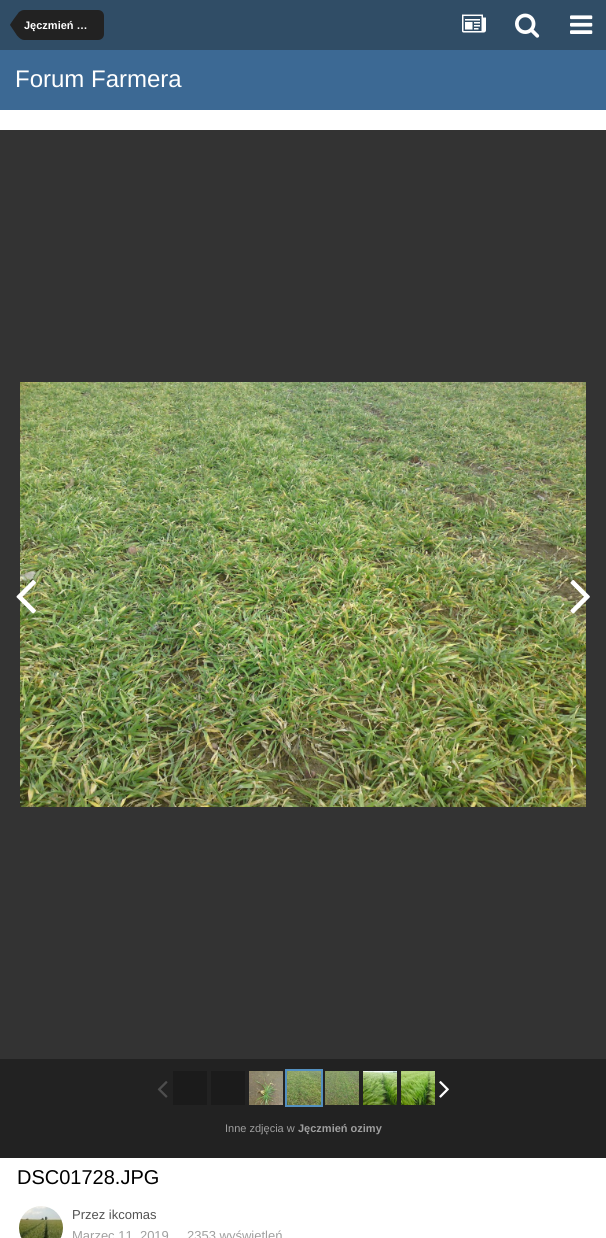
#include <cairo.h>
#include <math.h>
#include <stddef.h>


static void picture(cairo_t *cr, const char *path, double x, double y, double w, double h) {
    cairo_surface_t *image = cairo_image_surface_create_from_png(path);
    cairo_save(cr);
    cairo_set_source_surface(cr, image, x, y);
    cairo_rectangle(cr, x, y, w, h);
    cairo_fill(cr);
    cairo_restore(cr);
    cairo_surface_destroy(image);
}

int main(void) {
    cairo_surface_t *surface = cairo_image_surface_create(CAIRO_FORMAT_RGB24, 606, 1238);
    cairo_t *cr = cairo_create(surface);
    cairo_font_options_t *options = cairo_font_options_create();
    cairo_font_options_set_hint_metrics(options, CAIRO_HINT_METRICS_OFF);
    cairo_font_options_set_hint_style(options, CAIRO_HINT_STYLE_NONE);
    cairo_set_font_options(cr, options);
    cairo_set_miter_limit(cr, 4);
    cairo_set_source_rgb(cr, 0.188, 0.302, 0.4);
    cairo_paint(cr);
    cairo_set_source_rgb(cr, 0.133, 0.133, 0.133);
    cairo_new_path(cr);
    cairo_move_to(cr, 24, 10);
    cairo_line_to(cr, 98, 10);
    cairo_curve_to(cr, 101.5, 10, 104, 12.5, 104, 16);
    cairo_line_to(cr, 104, 34);
    cairo_curve_to(cr, 104, 37.5, 101.5, 40, 98, 40);
    cairo_line_to(cr, 24, 40);
    cairo_close_path(cr);
    cairo_fill(cr);
    cairo_new_path(cr);
    cairo_move_to(cr, 24, 25);
    cairo_line_to(cr, 24, 40);
    cairo_curve_to(cr, 22, 40, 19.5, 38.5, 17, 35.5);
    cairo_line_to(cr, 10, 25);
    cairo_close_path(cr);
    cairo_move_to(cr, 24, 25);
    cairo_line_to(cr, 10, 25);
    cairo_curve_to(cr, 10, 24, 18.5, 12.5, 19, 12);
    cairo_curve_to(cr, 20.5, 11, 22, 10, 24, 10);
    cairo_close_path(cr);
    cairo_fill(cr);
    cairo_select_font_face(cr, "Liberation Sans", CAIRO_FONT_SLANT_NORMAL, CAIRO_FONT_WEIGHT_BOLD);
    cairo_set_font_size(cr, 11);
    cairo_set_source_rgb(cr, 1, 1, 1);
    cairo_move_to(cr, 24, 29);
    cairo_show_text(cr, "Jęczmień …");
    picture(cr, "img1.png", 462, 14, 24, 19);
    picture(cr, "img2.png", 515, 13, 25, 25);
    picture(cr, "img3.png", 570, 15, 23, 19);
    cairo_set_source_rgb(cr, 0.235, 0.412, 0.58);
    cairo_rectangle(cr, 0, 50, 606, 60);
    cairo_fill(cr);
    cairo_select_font_face(cr, "Liberation Sans", CAIRO_FONT_SLANT_NORMAL, CAIRO_FONT_WEIGHT_NORMAL);
    cairo_set_font_size(cr, 24);
    cairo_set_source_rgb(cr, 1, 1, 1);
    cairo_move_to(cr, 15, 87);
    cairo_show_text(cr, "Forum Farmera");
    cairo_rectangle(cr, 0, 110, 606, 1128);
    cairo_fill(cr);
    cairo_set_source_rgb(cr, 0.2, 0.2, 0.2);
    cairo_rectangle(cr, 0, 130, 606, 929);
    cairo_fill(cr);
    picture(cr, "img4.png", 20, 382, 566, 425);
    picture(cr, "img5.png", 16, 580, 20, 34);
    picture(cr, "img6.png", 570, 580, 20, 34);
    cairo_set_source_rgb(cr, 0.133, 0.133, 0.133);
    cairo_rectangle(cr, 0, 1059, 606, 99);
    cairo_fill(cr);
    picture(cr, "img7.png", 157, 1081, 11, 17);
    cairo_set_source_rgb(cr, 0.106, 0.106, 0.106);
    cairo_rectangle(cr, 173, 1071, 34, 34);
    cairo_fill(cr);
    cairo_rectangle(cr, 211, 1071, 34, 34);
    cairo_fill(cr);
    picture(cr, "img8.png", 249, 1071, 34, 34);
    picture(cr, "img9.png", 287, 1071, 34, 34);
    cairo_rectangle(cr, 286, 1070, 36, 36);
    cairo_set_source_rgb(cr, 0.329, 0.565, 0.753);
    cairo_stroke(cr);
    picture(cr, "img10.png", 325, 1071, 34, 34);
    picture(cr, "img11.png", 363, 1071, 34, 34);
    picture(cr, "img12.png", 401, 1071, 34, 34);
    picture(cr, "img13.png", 439, 1081, 10, 17);
    cairo_set_font_size(cr, 11);
    cairo_set_source_rgb(cr, 0.624, 0.624, 0.624);
    cairo_move_to(cr, 225, 1132);
    cairo_show_text(cr, "Inne zdjęcia w");
    cairo_select_font_face(cr, "Liberation Sans", CAIRO_FONT_SLANT_NORMAL, CAIRO_FONT_WEIGHT_BOLD);
    cairo_move_to(cr, 298, 1132);
    cairo_show_text(cr, "Jęczmień ozimy");
    cairo_select_font_face(cr, "Liberation Sans", CAIRO_FONT_SLANT_NORMAL, CAIRO_FONT_WEIGHT_NORMAL);
    cairo_set_font_size(cr, 20);
    cairo_set_source_rgb(cr, 0, 0, 0);
    cairo_move_to(cr, 17, 1184);
    cairo_show_text(cr, "DSC01728.JPG");
    picture(cr, "img14.png", 19, 1206, 44, 32);
    cairo_set_font_size(cr, 13);
    cairo_set_source_rgb(cr, 0.322, 0.322, 0.322);
    cairo_move_to(cr, 72, 1219);
    cairo_show_text(cr, "Przez ikcomas");
    cairo_set_source_rgb(cr, 0.624, 0.624, 0.624);
    cairo_move_to(cr, 72, 1240);
    cairo_show_text(cr, "Marzec 11, 2019");
    cairo_move_to(cr, 187, 1240);
    cairo_show_text(cr, "2353 wyświetleń");
    cairo_surface_write_to_png(surface, "page.png");
    cairo_font_options_destroy(options);
    cairo_destroy(cr);
    cairo_surface_destroy(surface);
    return 0;
}
